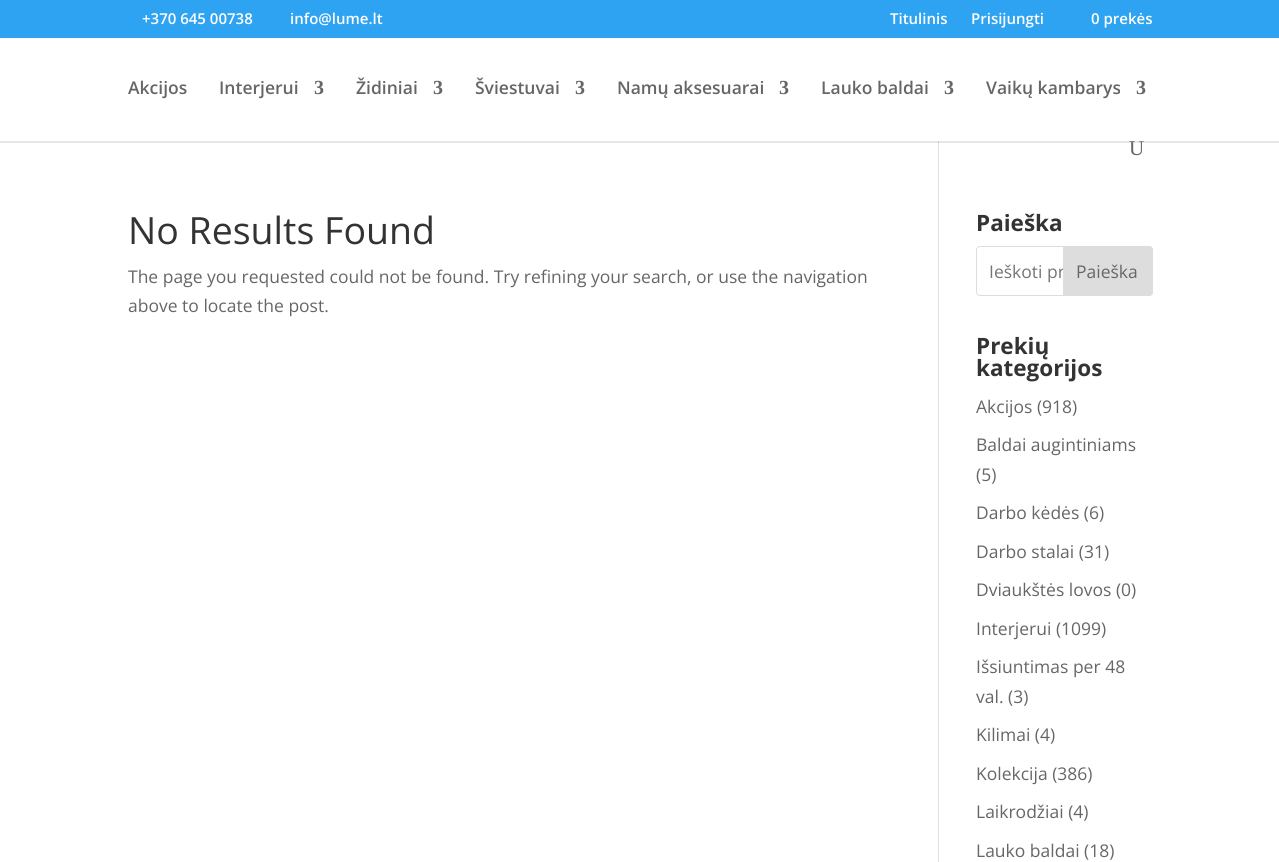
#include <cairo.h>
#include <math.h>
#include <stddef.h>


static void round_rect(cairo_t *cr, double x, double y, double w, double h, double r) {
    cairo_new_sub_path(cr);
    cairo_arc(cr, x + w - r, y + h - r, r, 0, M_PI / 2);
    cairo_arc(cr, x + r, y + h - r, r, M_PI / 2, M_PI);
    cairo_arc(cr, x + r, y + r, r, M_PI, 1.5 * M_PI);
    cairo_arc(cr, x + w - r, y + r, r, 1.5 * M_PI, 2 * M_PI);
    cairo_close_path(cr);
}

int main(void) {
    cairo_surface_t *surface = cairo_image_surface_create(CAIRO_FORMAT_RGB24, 1279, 862);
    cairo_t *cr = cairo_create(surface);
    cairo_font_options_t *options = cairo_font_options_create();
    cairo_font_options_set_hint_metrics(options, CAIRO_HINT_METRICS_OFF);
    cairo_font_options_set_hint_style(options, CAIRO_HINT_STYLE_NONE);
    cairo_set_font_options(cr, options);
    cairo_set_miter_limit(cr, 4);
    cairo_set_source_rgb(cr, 1, 1, 1);
    cairo_paint(cr);
    cairo_set_source_rgb(cr, 0.902, 0.902, 0.902);
    cairo_rectangle(cr, 0, 141, 1279, 2);
    cairo_fill(cr);
    cairo_set_source_rgb(cr, 0.18, 0.639, 0.949);
    cairo_rectangle(cr, 0, 0, 1279, 38);
    cairo_fill(cr);
    cairo_select_font_face(cr, "Open Sans SemiBold", CAIRO_FONT_SLANT_NORMAL, CAIRO_FONT_WEIGHT_NORMAL);
    cairo_set_font_size(cr, 15);
    cairo_set_source_rgb(cr, 1, 1, 1);
    cairo_move_to(cr, 142, 24);
    cairo_show_text(cr, "+370 645 00738");
    cairo_move_to(cr, 290, 24);
    cairo_show_text(cr, "info@lume.lt");
    cairo_move_to(cr, 890, 24);
    cairo_show_text(cr, "Titulinis");
    cairo_move_to(cr, 971, 24);
    cairo_show_text(cr, "Prisijungti");
    cairo_move_to(cr, 1091, 24);
    cairo_show_text(cr, "0 prekės");
    cairo_set_source_rgb(cr, 0.886, 0.886, 0.886);
    cairo_rectangle(cr, 938, 139, 1, 723);
    cairo_fill(cr);
    cairo_set_source_rgb(cr, 1, 1, 1);
    cairo_rectangle(cr, 938, 139, 1, 2);
    cairo_fill(cr);
    cairo_set_font_size(cr, 17.5);
    cairo_set_source_rgb(cr, 0.4, 0.4, 0.4);
    cairo_move_to(cr, 128, 94);
    cairo_show_text(cr, "Akcijos");
    cairo_move_to(cr, 219, 94);
    cairo_show_text(cr, "Interjerui");
    cairo_select_font_face(cr, "Liberation Serif", CAIRO_FONT_SLANT_NORMAL, CAIRO_FONT_WEIGHT_BOLD);
    cairo_set_font_size(cr, 20);
    cairo_move_to(cr, 314, 94);
    cairo_show_text(cr, "3");
    cairo_select_font_face(cr, "Open Sans SemiBold", CAIRO_FONT_SLANT_NORMAL, CAIRO_FONT_WEIGHT_NORMAL);
    cairo_set_font_size(cr, 17.5);
    cairo_move_to(cr, 356, 94);
    cairo_show_text(cr, "Židiniai");
    cairo_select_font_face(cr, "Liberation Serif", CAIRO_FONT_SLANT_NORMAL, CAIRO_FONT_WEIGHT_BOLD);
    cairo_set_font_size(cr, 20);
    cairo_move_to(cr, 433, 94);
    cairo_show_text(cr, "3");
    cairo_select_font_face(cr, "Open Sans SemiBold", CAIRO_FONT_SLANT_NORMAL, CAIRO_FONT_WEIGHT_NORMAL);
    cairo_set_font_size(cr, 17.5);
    cairo_move_to(cr, 475, 94);
    cairo_show_text(cr, "Šviestuvai");
    cairo_select_font_face(cr, "Liberation Serif", CAIRO_FONT_SLANT_NORMAL, CAIRO_FONT_WEIGHT_BOLD);
    cairo_set_font_size(cr, 20);
    cairo_move_to(cr, 575, 94);
    cairo_show_text(cr, "3");
    cairo_select_font_face(cr, "Open Sans SemiBold", CAIRO_FONT_SLANT_NORMAL, CAIRO_FONT_WEIGHT_NORMAL);
    cairo_set_font_size(cr, 17.5);
    cairo_move_to(cr, 617, 94);
    cairo_show_text(cr, "Namų aksesuarai");
    cairo_select_font_face(cr, "Liberation Serif", CAIRO_FONT_SLANT_NORMAL, CAIRO_FONT_WEIGHT_BOLD);
    cairo_set_font_size(cr, 20);
    cairo_move_to(cr, 779, 94);
    cairo_show_text(cr, "3");
    cairo_select_font_face(cr, "Open Sans SemiBold", CAIRO_FONT_SLANT_NORMAL, CAIRO_FONT_WEIGHT_NORMAL);
    cairo_set_font_size(cr, 17.5);
    cairo_move_to(cr, 821, 94);
    cairo_show_text(cr, "Lauko baldai");
    cairo_select_font_face(cr, "Liberation Serif", CAIRO_FONT_SLANT_NORMAL, CAIRO_FONT_WEIGHT_BOLD);
    cairo_set_font_size(cr, 20);
    cairo_move_to(cr, 944, 94);
    cairo_show_text(cr, "3");
    cairo_select_font_face(cr, "Open Sans SemiBold", CAIRO_FONT_SLANT_NORMAL, CAIRO_FONT_WEIGHT_NORMAL);
    cairo_set_font_size(cr, 17.5);
    cairo_move_to(cr, 986, 94);
    cairo_show_text(cr, "Vaikų kambarys");
    cairo_select_font_face(cr, "Liberation Serif", CAIRO_FONT_SLANT_NORMAL, CAIRO_FONT_WEIGHT_BOLD);
    cairo_set_font_size(cr, 20);
    cairo_move_to(cr, 1136, 94);
    cairo_show_text(cr, "3");
    cairo_select_font_face(cr, "Liberation Serif", CAIRO_FONT_SLANT_NORMAL, CAIRO_FONT_WEIGHT_NORMAL);
    cairo_set_font_size(cr, 21);
    cairo_move_to(cr, 1129, 155);
    cairo_show_text(cr, "U");
    cairo_set_source_rgb(cr, 0.796, 0.796, 0.796);
    cairo_rectangle(cr, 938, 141, 1, 2);
    cairo_fill(cr);
    cairo_select_font_face(cr, "Open Sans", CAIRO_FONT_SLANT_NORMAL, CAIRO_FONT_WEIGHT_NORMAL);
    cairo_set_font_size(cr, 37.5);
    cairo_set_source_rgb(cr, 0.2, 0.2, 0.2);
    cairo_move_to(cr, 128, 244);
    cairo_show_text(cr, "No Results Found");
    cairo_set_font_size(cr, 17.5);
    cairo_set_source_rgb(cr, 0.4, 0.4, 0.4);
    cairo_move_to(cr, 128, 283);
    cairo_show_text(cr, "The page you requested could not be found. Try refining your search, or use the navigation");
    cairo_move_to(cr, 128, 312);
    cairo_show_text(cr, "above to locate the post.");
    cairo_select_font_face(cr, "Open Sans", CAIRO_FONT_SLANT_NORMAL, CAIRO_FONT_WEIGHT_BOLD);
    cairo_set_font_size(cr, 22.5);
    cairo_set_source_rgb(cr, 0.2, 0.2, 0.2);
    cairo_move_to(cr, 976, 231);
    cairo_show_text(cr, "Paieška");
    round_rect(cr, 976.5, 246.5, 176, 49, 3.5);
    cairo_set_source_rgb(cr, 0.867, 0.867, 0.867);
    cairo_set_line_width(cr, 1);
    cairo_stroke(cr);
    cairo_select_font_face(cr, "Open Sans", CAIRO_FONT_SLANT_NORMAL, CAIRO_FONT_WEIGHT_NORMAL);
    cairo_set_font_size(cr, 17.5);
    cairo_set_source_rgb(cr, 0.459, 0.459, 0.459);
    cairo_move_to(cr, 989, 278);
    cairo_show_text(cr, "Ieškoti pr");
    cairo_set_source_rgb(cr, 0.867, 0.867, 0.867);
    cairo_new_path(cr);
    cairo_move_to(cr, 1063.5, 246.5);
    cairo_line_to(cr, 1149, 246.5);
    cairo_curve_to(cr, 1151, 246.5, 1152.5, 248, 1152.5, 250);
    cairo_line_to(cr, 1152.5, 292);
    cairo_curve_to(cr, 1152.5, 294, 1151, 295.5, 1149, 295.5);
    cairo_line_to(cr, 1063.5, 295.5);
    cairo_close_path(cr);
    cairo_fill_preserve(cr);
    cairo_stroke(cr);
    cairo_set_source_rgb(cr, 0.4, 0.4, 0.4);
    cairo_move_to(cr, 1076, 278);
    cairo_show_text(cr, "Paieška");
    cairo_select_font_face(cr, "Open Sans", CAIRO_FONT_SLANT_NORMAL, CAIRO_FONT_WEIGHT_BOLD);
    cairo_set_font_size(cr, 22.5);
    cairo_set_source_rgb(cr, 0.2, 0.2, 0.2);
    cairo_move_to(cr, 976, 354);
    cairo_show_text(cr, "Prekių");
    cairo_move_to(cr, 976, 376);
    cairo_show_text(cr, "kategorijos");
    cairo_select_font_face(cr, "Open Sans", CAIRO_FONT_SLANT_NORMAL, CAIRO_FONT_WEIGHT_NORMAL);
    cairo_set_font_size(cr, 17.5);
    cairo_set_source_rgb(cr, 0.4, 0.4, 0.4);
    cairo_move_to(cr, 976, 413);
    cairo_show_text(cr, "Akcijos (918)");
    cairo_move_to(cr, 976, 451);
    cairo_show_text(cr, "Baldai augintiniams");
    cairo_move_to(cr, 976, 481);
    cairo_show_text(cr, "(5)");
    cairo_move_to(cr, 976, 519);
    cairo_show_text(cr, "Darbo kėdės (6)");
    cairo_move_to(cr, 976, 558);
    cairo_show_text(cr, "Darbo stalai (31)");
    cairo_move_to(cr, 976, 596);
    cairo_show_text(cr, "Dviaukštės lovos (0)");
    cairo_move_to(cr, 976, 635);
    cairo_show_text(cr, "Interjerui (1099)");
    cairo_move_to(cr, 976, 673);
    cairo_show_text(cr, "Išsiuntimas per 48");
    cairo_move_to(cr, 976, 703);
    cairo_show_text(cr, "val. (3)");
    cairo_move_to(cr, 976, 741);
    cairo_show_text(cr, "Kilimai (4)");
    cairo_move_to(cr, 976, 780);
    cairo_show_text(cr, "Kolekcija (386)");
    cairo_move_to(cr, 976, 818);
    cairo_show_text(cr, "Laikrodžiai (4)");
    cairo_move_to(cr, 976, 857);
    cairo_show_text(cr, "Lauko baldai (18)");
    cairo_surface_write_to_png(surface, "page.png");
    cairo_font_options_destroy(options);
    cairo_destroy(cr);
    cairo_surface_destroy(surface);
    return 0;
}
